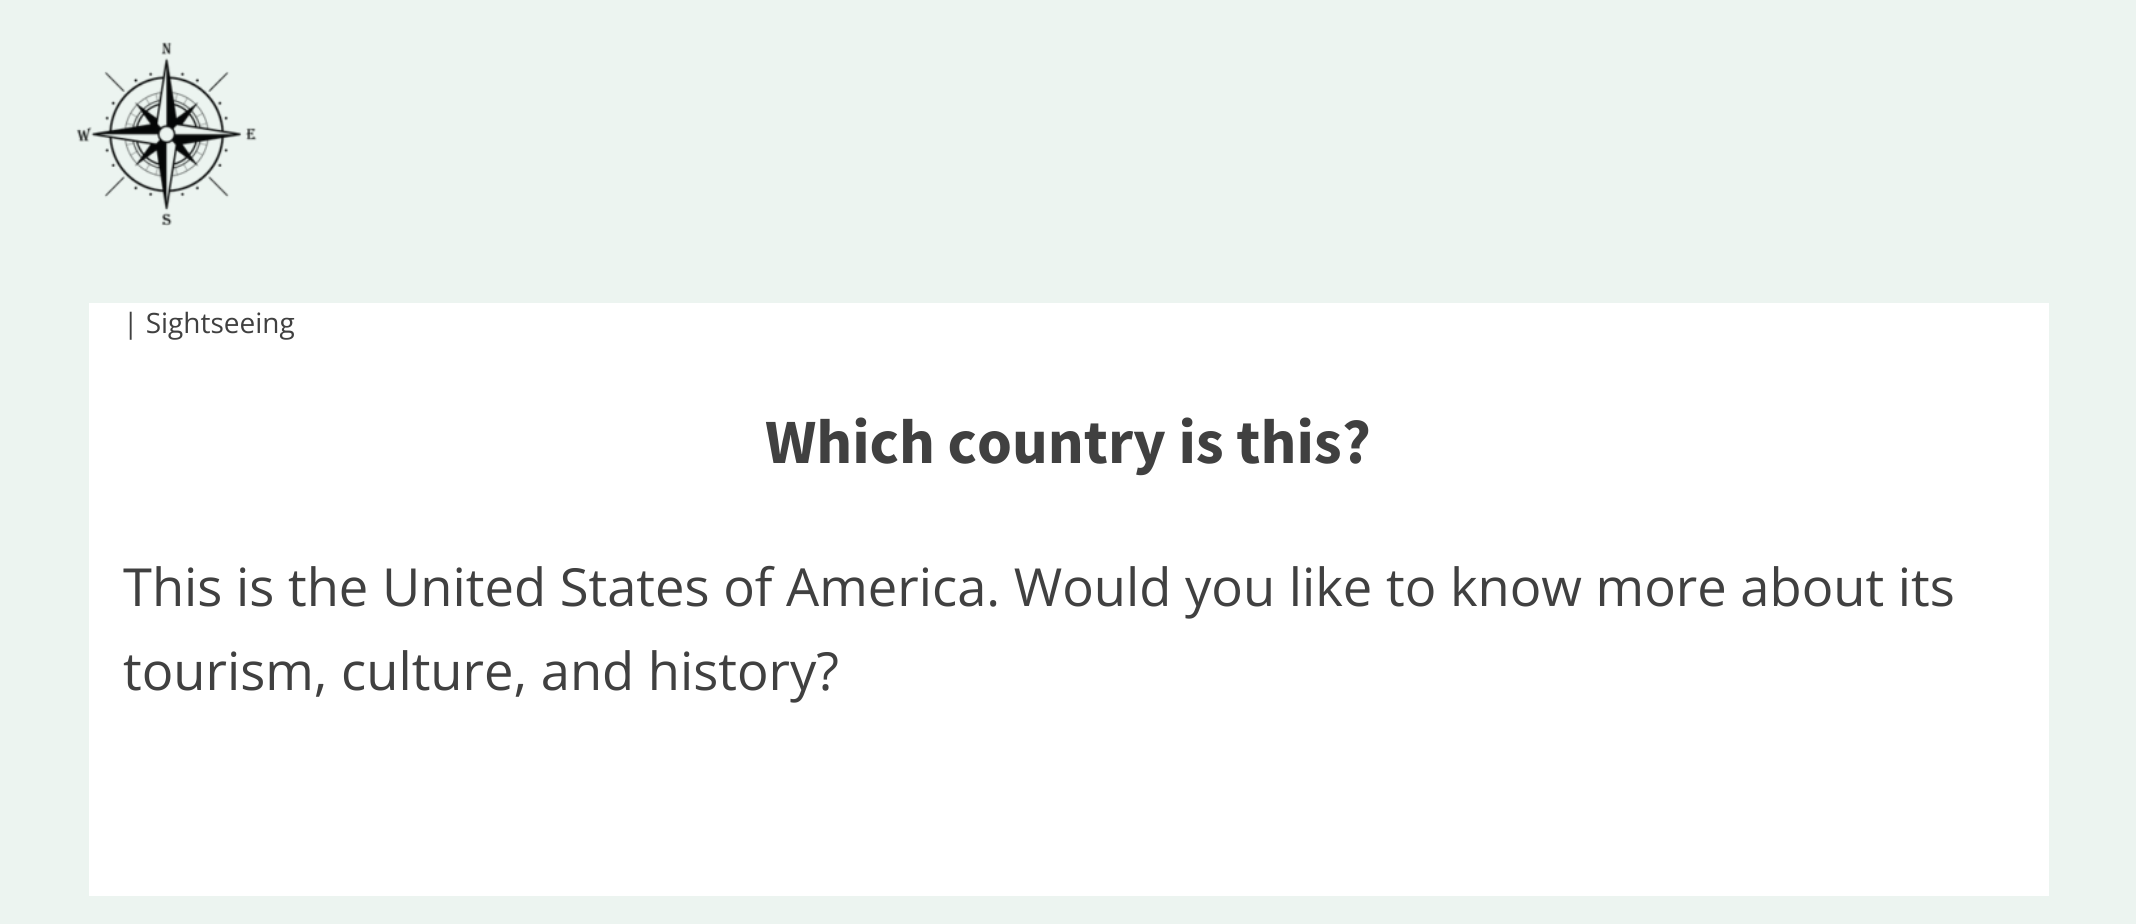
#include <cairo.h>
#include <math.h>
#include <stddef.h>


static void picture(cairo_t *cr, const char *path, double x, double y, double w, double h) {
    cairo_surface_t *image = cairo_image_surface_create_from_png(path);
    cairo_save(cr);
    cairo_set_source_surface(cr, image, x, y);
    cairo_rectangle(cr, x, y, w, h);
    cairo_fill(cr);
    cairo_restore(cr);
    cairo_surface_destroy(image);
}

int main(void) {
    cairo_surface_t *surface = cairo_image_surface_create(CAIRO_FORMAT_RGB24, 2136, 924);
    cairo_t *cr = cairo_create(surface);
    cairo_font_options_t *options = cairo_font_options_create();
    cairo_font_options_set_hint_metrics(options, CAIRO_HINT_METRICS_OFF);
    cairo_font_options_set_hint_style(options, CAIRO_HINT_STYLE_NONE);
    cairo_set_font_options(cr, options);
    cairo_set_miter_limit(cr, 4);
    cairo_set_source_rgb(cr, 0.922, 0.957, 0.941);
    cairo_paint(cr);
    picture(cr, "img1.png", 76, 42, 181, 184);
    cairo_set_source_rgb(cr, 1, 1, 1);
    cairo_rectangle(cr, 89, 303, 1960, 593);
    cairo_fill(cr);
    cairo_select_font_face(cr, "Open Sans", CAIRO_FONT_SLANT_NORMAL, CAIRO_FONT_WEIGHT_NORMAL);
    cairo_set_font_size(cr, 28);
    cairo_set_source_rgb(cr, 0.251, 0.251, 0.251);
    cairo_move_to(cr, 123, 333);
    cairo_show_text(cr, "| Sightseeing");
    cairo_select_font_face(cr, "Source Sans Pro", CAIRO_FONT_SLANT_NORMAL, CAIRO_FONT_WEIGHT_BOLD);
    cairo_set_font_size(cr, 63);
    cairo_move_to(cr, 765, 463);
    cairo_show_text(cr, "Which country is this?");
    cairo_select_font_face(cr, "Open Sans", CAIRO_FONT_SLANT_NORMAL, CAIRO_FONT_WEIGHT_NORMAL);
    cairo_set_font_size(cr, 52.5);
    cairo_move_to(cr, 123, 606);
    cairo_show_text(cr, "This is the United States of America. Would you like to know more about its");
    cairo_move_to(cr, 123, 690);
    cairo_show_text(cr, "tourism, culture, and history?");
    cairo_surface_write_to_png(surface, "page.png");
    cairo_font_options_destroy(options);
    cairo_destroy(cr);
    cairo_surface_destroy(surface);
    return 0;
}
